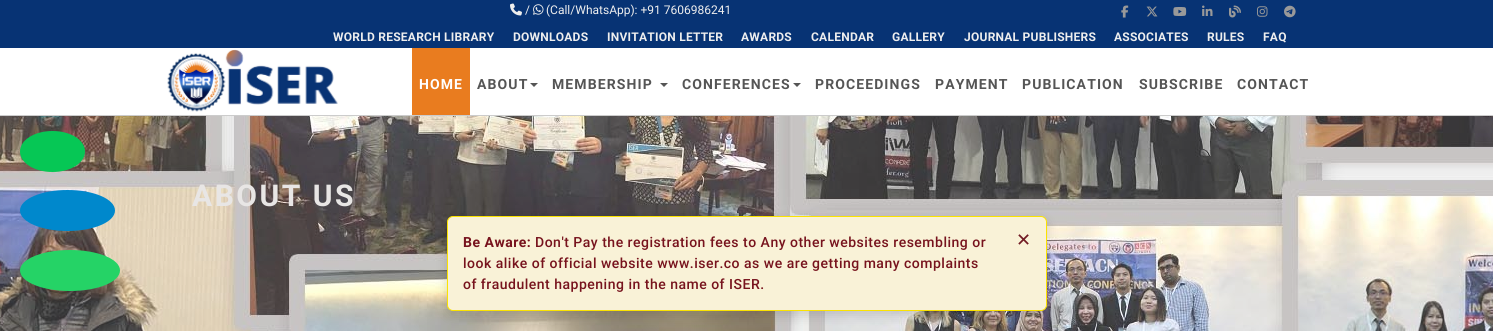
#include <cairo.h>
#include <math.h>
#include <stddef.h>


static void spaced_text(cairo_t *cr, double x, double y, const char *s, double letter, double word) {
    cairo_move_to(cr, x, y);
    while (*s) {
        char ch[5] = {0};
        int n = 0;
        do ch[n++] = *s++; while ((*s & 0xC0) == 0x80);
        cairo_show_text(cr, ch);
        cairo_rel_move_to(cr, letter + word * (*ch == ' '), 0);
    }
}

static void round_rect(cairo_t *cr, double x, double y, double w, double h, double r) {
    cairo_new_sub_path(cr);
    cairo_arc(cr, x + w - r, y + h - r, r, 0, M_PI / 2);
    cairo_arc(cr, x + r, y + h - r, r, M_PI / 2, M_PI);
    cairo_arc(cr, x + r, y + r, r, M_PI, 1.5 * M_PI);
    cairo_arc(cr, x + w - r, y + r, r, 1.5 * M_PI, 2 * M_PI);
    cairo_close_path(cr);
}

static void shadow(cairo_t *cr, double x, double y, double w, double h, double r, double blur, double alpha) {
    cairo_push_group_with_content(cr, CAIRO_CONTENT_ALPHA);
    cairo_set_operator(cr, CAIRO_OPERATOR_SOURCE);
    for (int i = 15; i >= -15 && fmin(w, h) + blur * i / 3 > 0; i -= 2) {
        double e = blur * i / 6;
        cairo_set_source_rgba(cr, 0, 0, 0, alpha * erfc((i - 1) / 8.5) / 2);
        round_rect(cr, x - e, y - e, w + 2 * e, h + 2 * e, fmax(0, fmin(r + e + blur * .6, fmin(w, h) / 2 + e)));
        cairo_fill(cr);
    }
    cairo_pattern_t *soft = cairo_pop_group(cr);
    cairo_mask(cr, soft);
    cairo_pattern_destroy(soft);
}

static void picture(cairo_t *cr, const char *path, double x, double y, double w, double h) {
    cairo_surface_t *image = cairo_image_surface_create_from_png(path);
    cairo_save(cr);
    cairo_set_source_surface(cr, image, x, y);
    cairo_rectangle(cr, x, y, w, h);
    cairo_fill(cr);
    cairo_restore(cr);
    cairo_surface_destroy(image);
}

int main(void) {
    cairo_surface_t *surface = cairo_image_surface_create(CAIRO_FORMAT_RGB24, 1493, 331);
    cairo_t *cr = cairo_create(surface);
    cairo_font_options_t *options = cairo_font_options_create();
    cairo_font_options_set_hint_metrics(options, CAIRO_HINT_METRICS_OFF);
    cairo_font_options_set_hint_style(options, CAIRO_HINT_STYLE_NONE);
    cairo_set_font_options(cr, options);
    cairo_set_miter_limit(cr, 4);
    cairo_set_source_rgb(cr, 1, 1, 1);
    cairo_paint(cr);
    picture(cr, "img11.png", 0, 116, 1493, 215);
    cairo_set_source_rgb(cr, 0.024, 0.78, 0.333);
    cairo_new_path(cr);
    cairo_move_to(cr, 52.5, 131);
    cairo_curve_to(cr, 70.5, 131, 85, 140, 85, 151.5);
    cairo_curve_to(cr, 85, 163, 70.5, 172, 52.5, 172);
    cairo_curve_to(cr, 34.5, 172, 20, 163, 20, 151.5);
    cairo_curve_to(cr, 20, 140, 34.5, 131, 52.5, 131);
    cairo_close_path(cr);
    cairo_fill(cr);
    cairo_set_source_rgb(cr, 0.031, 0.2, 0.455);
    cairo_rectangle(cr, 0, 0, 1493, 48);
    cairo_fill(cr);
    picture(cr, "img1.png", 510, 3, 12, 13);
    cairo_select_font_face(cr, "Roboto", CAIRO_FONT_SLANT_NORMAL, CAIRO_FONT_WEIGHT_NORMAL);
    cairo_set_font_size(cr, 12);
    cairo_set_source_rgb(cr, 0.933, 0.933, 0.933);
    cairo_move_to(cr, 525, 14);
    cairo_show_text(cr, "/");
    picture(cr, "img2.png", 533, 4, 11, 11);
    cairo_move_to(cr, 546, 14);
    cairo_show_text(cr, "(Call/WhatsApp): +91 7606986241");
    picture(cr, "img3.png", 1121, 5, 8, 13);
    picture(cr, "img4.png", 1146, 6, 12, 11);
    picture(cr, "img5.png", 1173, 7, 14, 9);
    picture(cr, "img6.png", 1202, 5, 11, 11);
    picture(cr, "img7.png", 1229, 5, 12, 13);
    picture(cr, "img8.png", 1257, 6, 11, 11);
    picture(cr, "img9.png", 1284, 5, 12, 13);
    cairo_select_font_face(cr, "Roboto", CAIRO_FONT_SLANT_NORMAL, CAIRO_FONT_WEIGHT_BOLD);
    spaced_text(cr, 333, 41, "WORLD RESEARCH LIBRARY", 0.25, 0);
    spaced_text(cr, 513, 41, "DOWNLOADS", 0.25, 0);
    spaced_text(cr, 607, 41, "INVITATION LETTER", 0.25, 0);
    spaced_text(cr, 741, 41, "AWARDS", 0.25, 0);
    spaced_text(cr, 811, 41, "CALENDAR", 0.25, 0);
    spaced_text(cr, 892, 41, "GALLERY", 0.25, 0);
    spaced_text(cr, 964, 41, "JOURNAL PUBLISHERS", 0.25, 0);
    spaced_text(cr, 1114, 41, "ASSOCIATES", 0.25, 0);
    spaced_text(cr, 1207, 41, "RULES", 0.25, 0);
    spaced_text(cr, 1263, 41, "FAQ", 0.25, 0);
    cairo_set_source_rgb(cr, 0.8, 0.8, 0.8);
    cairo_rectangle(cr, 0, 115, 1493, 1);
    cairo_fill(cr);
    picture(cr, "img10.png", 167, 49, 171, 63);
    cairo_set_source_rgb(cr, 0.914, 0.486, 0.122);
    cairo_rectangle(cr, 412, 48, 58, 67);
    cairo_fill(cr);
    cairo_set_font_size(cr, 14);
    cairo_set_source_rgb(cr, 1, 1, 1);
    spaced_text(cr, 419, 89, "HOME", 1.1, 0);
    cairo_set_source_rgb(cr, 0.333, 0.333, 0.333);
    spaced_text(cr, 477, 89, "ABOUT", 1.1, 0);
    cairo_new_path(cr);
    cairo_move_to(cr, 530, 83);
    cairo_line_to(cr, 538, 83);
    cairo_line_to(cr, 534, 87);
    cairo_close_path(cr);
    cairo_fill(cr);
    spaced_text(cr, 552, 89, "MEMBERSHIP", 1.1, 0);
    cairo_new_path(cr);
    cairo_move_to(cr, 660, 83);
    cairo_line_to(cr, 668, 83);
    cairo_line_to(cr, 664, 87);
    cairo_close_path(cr);
    cairo_fill(cr);
    spaced_text(cr, 682, 89, "CONFERENCES", 1.1, 0);
    cairo_new_path(cr);
    cairo_move_to(cr, 793, 83);
    cairo_line_to(cr, 801, 83);
    cairo_line_to(cr, 797, 87);
    cairo_close_path(cr);
    cairo_fill(cr);
    spaced_text(cr, 815, 89, "PROCEEDINGS", 1.1, 0);
    spaced_text(cr, 935, 89, "PAYMENT", 1.1, 0);
    spaced_text(cr, 1022, 89, "PUBLICATION", 1.1, 0);
    spaced_text(cr, 1139, 89, "SUBSCRIBE", 1.1, 0);
    spaced_text(cr, 1237, 89, "CONTACT", 1.1, 0);
    cairo_set_font_size(cr, 30);
    cairo_set_source_rgb(cr, 0.91, 0.902, 0.898);
    spaced_text(cr, 192, 206, "ABOUT US", 2.5, 0);
    cairo_set_source_rgb(cr, 0, 0.533, 0.8);
    cairo_new_path(cr);
    cairo_move_to(cr, 67.5, 190);
    cairo_curve_to(cr, 93.5, 190, 115, 199, 115, 210.5);
    cairo_curve_to(cr, 115, 222, 93.5, 231, 67.5, 231);
    cairo_curve_to(cr, 41.5, 231, 20, 222, 20, 210.5);
    cairo_curve_to(cr, 20, 199, 41.5, 190, 67.5, 190);
    cairo_close_path(cr);
    cairo_fill(cr);
    cairo_set_source_rgb(cr, 0.145, 0.827, 0.4);
    cairo_new_path(cr);
    cairo_move_to(cr, 70, 250);
    cairo_curve_to(cr, 97.5, 250, 120, 259, 120, 270.5);
    cairo_curve_to(cr, 120, 282, 97.5, 291, 70, 291);
    cairo_curve_to(cr, 42.5, 291, 20, 282, 20, 270.5);
    cairo_curve_to(cr, 20, 259, 42.5, 250, 70, 250);
    cairo_close_path(cr);
    cairo_fill(cr);
    cairo_set_source_rgb(cr, 0, 0, 0);
    shadow(cr, 447, 220, 600, 95, 6, 6, 0.15);
    cairo_set_source_rgb(cr, 0.973, 0.949, 0.843);
    round_rect(cr, 447.5, 216.5, 599, 94, 5.5);
    cairo_fill_preserve(cr);
    cairo_set_source_rgb(cr, 0.984, 0.89, 0);
    cairo_set_line_width(cr, 1);
    cairo_stroke(cr);
    cairo_set_font_size(cr, 14);
    cairo_set_source_rgb(cr, 0.467, 0.078, 0.114);
    spaced_text(cr, 463, 247, "Be Aware:", 0.5, 0);
    cairo_select_font_face(cr, "Roboto Medium", CAIRO_FONT_SLANT_NORMAL, CAIRO_FONT_WEIGHT_NORMAL);
    spaced_text(cr, 535, 247, "Don't Pay the registration fees to Any other websites resembling or", 0.5, 0);
    spaced_text(cr, 463, 268, "look alike of official website www.iser.co as we are getting many complaints", 0.5, 0);
    spaced_text(cr, 463, 289, "of fraudulent happening in the name of ISER.", 0.5, 0);
    cairo_select_font_face(cr, "DejaVu Sans", CAIRO_FONT_SLANT_NORMAL, CAIRO_FONT_WEIGHT_NORMAL);
    cairo_set_font_size(cr, 18);
    cairo_set_source_rgb(cr, 0.447, 0.11, 0.141);
    cairo_move_to(cr, 1016, 246);
    cairo_show_text(cr, "✕");
    cairo_surface_write_to_png(surface, "page.png");
    cairo_font_options_destroy(options);
    cairo_destroy(cr);
    cairo_surface_destroy(surface);
    return 0;
}
